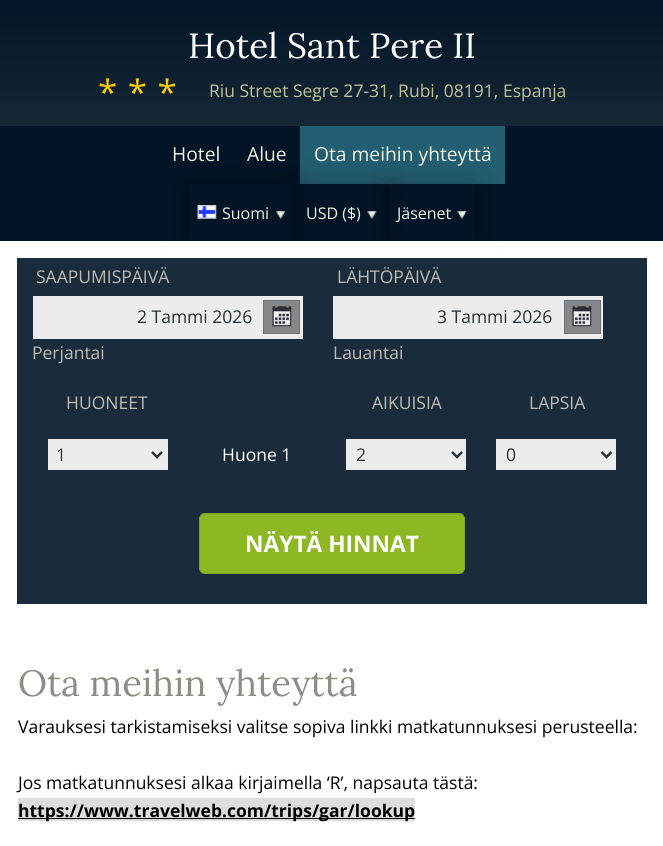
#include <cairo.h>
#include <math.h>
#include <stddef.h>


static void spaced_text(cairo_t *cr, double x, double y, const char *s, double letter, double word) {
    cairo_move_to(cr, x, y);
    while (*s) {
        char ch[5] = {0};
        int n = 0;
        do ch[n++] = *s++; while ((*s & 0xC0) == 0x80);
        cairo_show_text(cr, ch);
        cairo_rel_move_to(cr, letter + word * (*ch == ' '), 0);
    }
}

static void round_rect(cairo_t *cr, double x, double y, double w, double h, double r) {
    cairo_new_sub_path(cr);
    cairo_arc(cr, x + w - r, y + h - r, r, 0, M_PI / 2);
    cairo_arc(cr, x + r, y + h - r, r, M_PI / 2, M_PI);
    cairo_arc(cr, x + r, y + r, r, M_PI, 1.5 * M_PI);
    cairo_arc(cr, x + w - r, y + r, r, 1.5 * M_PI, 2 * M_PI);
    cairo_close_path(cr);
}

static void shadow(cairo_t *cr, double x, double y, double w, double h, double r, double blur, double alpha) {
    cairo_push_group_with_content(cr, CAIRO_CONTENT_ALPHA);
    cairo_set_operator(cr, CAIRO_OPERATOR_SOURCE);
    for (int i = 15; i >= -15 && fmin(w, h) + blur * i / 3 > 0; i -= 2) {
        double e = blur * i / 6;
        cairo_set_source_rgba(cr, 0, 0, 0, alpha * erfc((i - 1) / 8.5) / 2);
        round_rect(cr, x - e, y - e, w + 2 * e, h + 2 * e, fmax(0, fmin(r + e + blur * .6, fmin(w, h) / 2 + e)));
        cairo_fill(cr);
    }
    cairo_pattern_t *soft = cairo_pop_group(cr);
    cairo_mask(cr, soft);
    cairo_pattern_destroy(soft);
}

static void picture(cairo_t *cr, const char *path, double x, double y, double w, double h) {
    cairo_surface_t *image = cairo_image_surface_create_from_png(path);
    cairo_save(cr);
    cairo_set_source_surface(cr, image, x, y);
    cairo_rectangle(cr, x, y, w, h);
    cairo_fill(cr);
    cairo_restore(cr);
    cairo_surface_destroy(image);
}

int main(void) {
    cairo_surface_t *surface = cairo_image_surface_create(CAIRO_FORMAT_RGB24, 663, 846);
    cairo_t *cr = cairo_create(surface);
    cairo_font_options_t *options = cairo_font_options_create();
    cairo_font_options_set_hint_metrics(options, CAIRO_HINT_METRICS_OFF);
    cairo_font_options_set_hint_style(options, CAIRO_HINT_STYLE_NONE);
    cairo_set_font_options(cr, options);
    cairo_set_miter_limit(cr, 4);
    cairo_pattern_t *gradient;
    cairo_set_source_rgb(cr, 1, 1, 1);
    cairo_paint(cr);
    gradient = cairo_pattern_create_linear(332, 0, 332, 126);
    cairo_pattern_add_color_stop_rgba(gradient, 0, 0.008, 0.082, 0.149, 1);
    cairo_pattern_add_color_stop_rgba(gradient, 1, 0.086, 0.153, 0.212, 1);
    cairo_set_source(cr, gradient);
    cairo_pattern_destroy(gradient);
    cairo_rectangle(cr, 0, 0, 663, 126);
    cairo_fill(cr);
    cairo_select_font_face(cr, "Lora", CAIRO_FONT_SLANT_NORMAL, CAIRO_FONT_WEIGHT_NORMAL);
    cairo_set_font_size(cr, 35);
    cairo_set_source_rgb(cr, 1, 1, 1);
    cairo_move_to(cr, 188, 58);
    cairo_show_text(cr, "Hotel Sant Pere II");
    cairo_select_font_face(cr, "Open Sans", CAIRO_FONT_SLANT_NORMAL, CAIRO_FONT_WEIGHT_NORMAL);
    cairo_set_source_rgb(cr, 0.976, 0.792, 0.035);
    spaced_text(cr, 98, 105, "***", 10.5, 0);
    cairo_set_font_size(cr, 17.5);
    cairo_set_source_rgb(cr, 0.749, 0.761, 0.584);
    cairo_move_to(cr, 209, 97);
    cairo_show_text(cr, "Riu Street Segre 27-31, Rubi, 08191, Espanja");
    cairo_set_source_rgb(cr, 0.008, 0.082, 0.149);
    cairo_rectangle(cr, 0, 126, 663, 115);
    cairo_fill(cr);
    cairo_set_font_size(cr, 19.25);
    cairo_set_source_rgb(cr, 0.949, 0.949, 0.89);
    cairo_move_to(cr, 172, 161);
    cairo_show_text(cr, "Hotel");
    cairo_move_to(cr, 247, 161);
    cairo_show_text(cr, "Alue");
    cairo_set_source_rgb(cr, 0.133, 0.373, 0.447);
    cairo_rectangle(cr, 300, 126, 205, 58);
    cairo_fill(cr);
    cairo_set_source_rgb(cr, 0.949, 0.949, 0.89);
    cairo_move_to(cr, 314, 161);
    cairo_show_text(cr, "Ota meihin yhteyttä");
    cairo_set_source_rgb(cr, 0, 0, 0);
    shadow(cr, 189, 184, 104, 57, 0, 15, 0.27);
    cairo_set_source_rgb(cr, 0.008, 0.082, 0.149);
    cairo_rectangle(cr, 189, 184, 104, 57);
    cairo_fill(cr);
    picture(cr, "img1.png", 197, 205, 20, 14);
    cairo_set_font_size(cr, 16);
    cairo_set_source_rgb(cr, 0.949, 0.949, 0.89);
    cairo_move_to(cr, 222, 219);
    cairo_show_text(cr, "Suomi");
    picture(cr, "img2.png", 276, 211, 9, 8);
    cairo_save(cr);
    cairo_set_fill_rule(cr, CAIRO_FILL_RULE_EVEN_ODD);
    cairo_new_path(cr);
    cairo_move_to(cr, 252, 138);
    cairo_line_to(cr, 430, 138);
    cairo_line_to(cr, 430, 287);
    cairo_line_to(cr, 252, 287);
    cairo_close_path(cr);
    cairo_move_to(cr, 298, 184);
    cairo_line_to(cr, 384, 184);
    cairo_line_to(cr, 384, 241);
    cairo_line_to(cr, 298, 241);
    cairo_close_path(cr);
    cairo_clip(cr);
    cairo_set_source_rgb(cr, 0, 0, 0);
    shadow(cr, 298, 184, 86, 57, 0, 15, 0.27);
    cairo_restore(cr);
    cairo_set_source_rgba(cr, 0.008, 0.082, 0.149, 0.9);
    cairo_rectangle(cr, 298, 196, 3, 33);
    cairo_fill(cr);
    cairo_set_source_rgb(cr, 0.949, 0.949, 0.89);
    cairo_move_to(cr, 306, 219);
    cairo_show_text(cr, "USD ($)");
    picture(cr, "img3.png", 367, 211, 10, 8);
    cairo_save(cr);
    cairo_set_fill_rule(cr, CAIRO_FILL_RULE_EVEN_ODD);
    cairo_new_path(cr);
    cairo_move_to(cr, 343, 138);
    cairo_line_to(cr, 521, 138);
    cairo_line_to(cr, 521, 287);
    cairo_line_to(cr, 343, 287);
    cairo_close_path(cr);
    cairo_move_to(cr, 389, 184);
    cairo_line_to(cr, 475, 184);
    cairo_line_to(cr, 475, 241);
    cairo_line_to(cr, 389, 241);
    cairo_close_path(cr);
    cairo_clip(cr);
    cairo_set_source_rgb(cr, 0, 0, 0);
    shadow(cr, 389, 184, 86, 57, 0, 15, 0.27);
    cairo_restore(cr);
    cairo_set_source_rgba(cr, 0.008, 0.082, 0.149, 0.9);
    cairo_rectangle(cr, 389, 196, 3, 33);
    cairo_fill(cr);
    cairo_set_source_rgb(cr, 0.949, 0.949, 0.89);
    cairo_move_to(cr, 397, 219);
    cairo_show_text(cr, "Jäsenet");
    picture(cr, "img4.png", 457, 211, 10, 8);
    cairo_set_source_rgb(cr, 1, 1, 1);
    cairo_rectangle(cr, 168, 241, 328, 27);
    cairo_fill(cr);
    cairo_set_source_rgb(cr, 0.102, 0.173, 0.231);
    cairo_rectangle(cr, 17, 258, 630, 346);
    cairo_fill(cr);
    cairo_set_font_size(cr, 17.5);
    cairo_set_source_rgb(cr, 0.745, 0.737, 0.698);
    cairo_move_to(cr, 36, 283);
    cairo_show_text(cr, "SAAPUMISPÄIVÄ");
    cairo_set_source_rgb(cr, 0.922, 0.925, 0.929);
    cairo_rectangle(cr, 33, 296, 270, 43);
    cairo_fill(cr);
    cairo_set_source_rgb(cr, 0.525, 0.529, 0.533);
    cairo_rectangle(cr, 264, 301, 35, 32);
    cairo_fill(cr);
    picture(cr, "img5.png", 272, 306, 20, 21);
    cairo_rectangle(cr, 263.5, 300.5, 36, 33);
    cairo_set_source_rgb(cr, 0.431, 0.455, 0.478);
    cairo_set_line_width(cr, 1);
    cairo_stroke(cr);
    cairo_set_source_rgb(cr, 0.165, 0.196, 0.208);
    cairo_move_to(cr, 137, 323);
    cairo_show_text(cr, "2 Tammi 2026");
    cairo_set_source_rgb(cr, 0.745, 0.737, 0.698);
    cairo_move_to(cr, 32, 359);
    cairo_show_text(cr, "Perjantai");
    cairo_move_to(cr, 337, 283);
    cairo_show_text(cr, "LÄHTÖPÄIVÄ");
    cairo_set_source_rgb(cr, 0.922, 0.925, 0.929);
    cairo_rectangle(cr, 333, 296, 270, 43);
    cairo_fill(cr);
    cairo_set_source_rgb(cr, 0.525, 0.529, 0.533);
    cairo_rectangle(cr, 565, 301, 35, 32);
    cairo_fill(cr);
    picture(cr, "img6.png", 572, 306, 20, 21);
    cairo_rectangle(cr, 564.5, 300.5, 36, 33);
    cairo_set_source_rgb(cr, 0.431, 0.455, 0.478);
    cairo_stroke(cr);
    cairo_set_source_rgb(cr, 0.165, 0.196, 0.208);
    cairo_move_to(cr, 437, 323);
    cairo_show_text(cr, "3 Tammi 2026");
    cairo_set_source_rgb(cr, 0.745, 0.737, 0.698);
    cairo_move_to(cr, 333, 359);
    cairo_show_text(cr, "Lauantai");
    cairo_move_to(cr, 66, 409);
    cairo_show_text(cr, "HUONEET");
    cairo_move_to(cr, 372, 409);
    cairo_show_text(cr, "AIKUISIA");
    cairo_move_to(cr, 529, 409);
    cairo_show_text(cr, "LAPSIA");
    cairo_set_source_rgb(cr, 0.922, 0.925, 0.929);
    cairo_rectangle(cr, 48, 439, 120, 31);
    cairo_fill(cr);
    cairo_new_path(cr);
    cairo_move_to(cr, 152, 452);
    cairo_line_to(cr, 157, 457);
    cairo_line_to(cr, 162, 452);
    cairo_set_source_rgb(cr, 0.165, 0.196, 0.208);
    cairo_set_line_width(cr, 2.5);
    cairo_stroke(cr);
    cairo_move_to(cr, 56, 461);
    cairo_show_text(cr, "1");
    cairo_set_source_rgb(cr, 1, 1, 1);
    cairo_move_to(cr, 222, 461);
    cairo_show_text(cr, "Huone 1");
    cairo_set_source_rgb(cr, 0.922, 0.925, 0.929);
    cairo_rectangle(cr, 346, 439, 120, 31);
    cairo_fill(cr);
    cairo_new_path(cr);
    cairo_move_to(cr, 452, 452);
    cairo_line_to(cr, 457, 457);
    cairo_line_to(cr, 462, 452);
    cairo_set_source_rgb(cr, 0.165, 0.196, 0.208);
    cairo_stroke(cr);
    cairo_move_to(cr, 356, 461);
    cairo_show_text(cr, "2");
    cairo_set_source_rgb(cr, 0.922, 0.925, 0.929);
    cairo_rectangle(cr, 496, 439, 120, 31);
    cairo_fill(cr);
    cairo_new_path(cr);
    cairo_move_to(cr, 601.5, 452);
    cairo_line_to(cr, 606.5, 457);
    cairo_line_to(cr, 611.5, 452);
    cairo_set_source_rgb(cr, 0.165, 0.196, 0.208);
    cairo_stroke(cr);
    cairo_move_to(cr, 506, 461);
    cairo_show_text(cr, "0");
    cairo_set_source_rgb(cr, 0.557, 0.718, 0.141);
    round_rect(cr, 199.5, 513.5, 265, 60, 5.5);
    cairo_fill_preserve(cr);
    cairo_set_source_rgb(cr, 0.502, 0.647, 0.118);
    cairo_set_line_width(cr, 1);
    cairo_stroke(cr);
    cairo_select_font_face(cr, "Open Sans", CAIRO_FONT_SLANT_NORMAL, CAIRO_FONT_WEIGHT_BOLD);
    cairo_set_font_size(cr, 22.75);
    cairo_set_source_rgb(cr, 1, 1, 1);
    cairo_move_to(cr, 245, 552);
    cairo_show_text(cr, "NÄYTÄ HINNAT");
    cairo_select_font_face(cr, "Lora", CAIRO_FONT_SLANT_NORMAL, CAIRO_FONT_WEIGHT_NORMAL);
    cairo_set_font_size(cr, 36.5);
    cairo_set_source_rgb(cr, 0.557, 0.549, 0.525);
    cairo_move_to(cr, 18, 696);
    cairo_show_text(cr, "Ota meihin yhteyttä");
    cairo_select_font_face(cr, "Open Sans", CAIRO_FONT_SLANT_NORMAL, CAIRO_FONT_WEIGHT_NORMAL);
    cairo_set_font_size(cr, 17.5);
    cairo_set_source_rgb(cr, 0, 0, 0);
    cairo_move_to(cr, 18, 733);
    cairo_show_text(cr, "Varauksesi tarkistamiseksi valitse sopiva linkki matkatunnuksesi perusteella:");
    cairo_move_to(cr, 18, 789);
    cairo_show_text(cr, "Jos matkatunnuksesi alkaa kirjaimella ‘R’, napsauta tästä:");
    cairo_set_source_rgb(cr, 0.867, 0.867, 0.867);
    cairo_rectangle(cr, 18, 798, 397, 23);
    cairo_fill(cr);
    cairo_set_source_rgb(cr, 0, 0, 0);
    cairo_rectangle(cr, 18, 818, 397, 1);
    cairo_fill(cr);
    cairo_select_font_face(cr, "Open Sans", CAIRO_FONT_SLANT_NORMAL, CAIRO_FONT_WEIGHT_BOLD);
    cairo_move_to(cr, 18, 817);
    cairo_show_text(cr, "https://www.travelweb.com/trips/gar/lookup");
    cairo_surface_write_to_png(surface, "page.png");
    cairo_font_options_destroy(options);
    cairo_destroy(cr);
    cairo_surface_destroy(surface);
    return 0;
}
